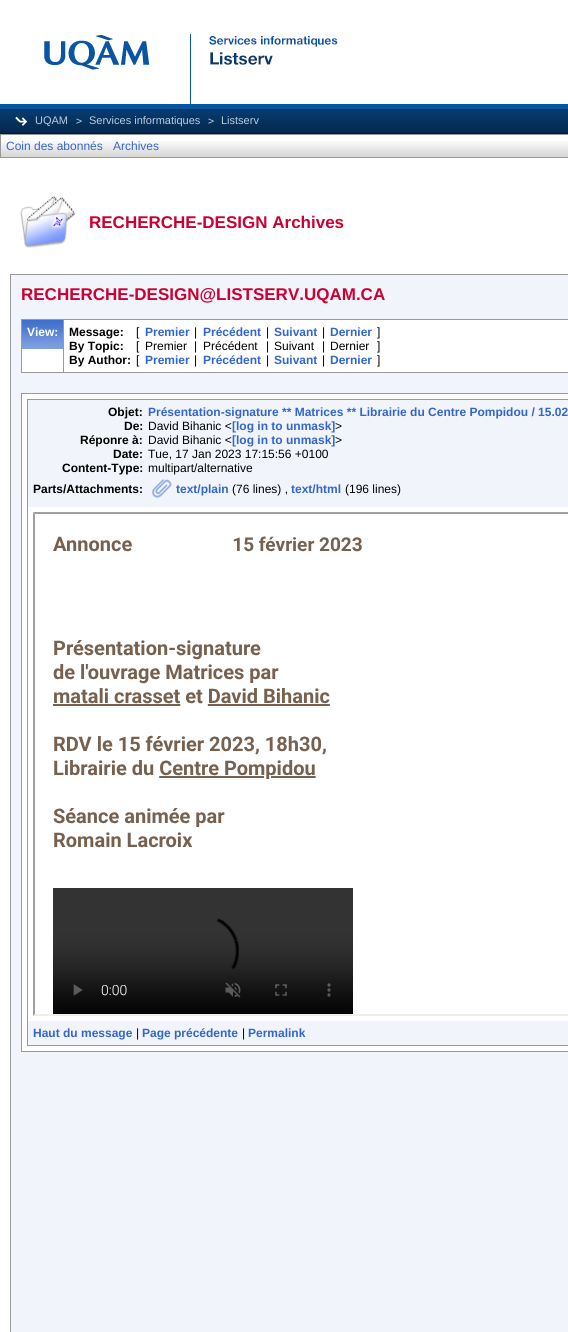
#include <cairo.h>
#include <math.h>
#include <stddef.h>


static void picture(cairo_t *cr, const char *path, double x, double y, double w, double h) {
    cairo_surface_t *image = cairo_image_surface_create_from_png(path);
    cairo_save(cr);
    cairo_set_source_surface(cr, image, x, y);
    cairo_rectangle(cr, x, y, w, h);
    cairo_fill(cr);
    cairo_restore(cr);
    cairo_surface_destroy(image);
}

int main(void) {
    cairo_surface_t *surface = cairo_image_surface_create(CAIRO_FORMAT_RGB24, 568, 1332);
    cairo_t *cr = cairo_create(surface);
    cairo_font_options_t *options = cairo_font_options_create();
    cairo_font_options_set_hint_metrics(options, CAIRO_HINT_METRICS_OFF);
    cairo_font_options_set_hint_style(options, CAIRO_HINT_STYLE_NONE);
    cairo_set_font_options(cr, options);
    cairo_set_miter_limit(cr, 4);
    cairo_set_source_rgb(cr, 1, 1, 1);
    cairo_paint(cr);
    picture(cr, "img1.png", 0, 133, 568, 1);
    picture(cr, "img2.png", 0, 109, 568, 24);
    picture(cr, "img3.png", 0, 34, 568, 75);
    picture(cr, "img4.png", 15, 116, 13, 10);
    cairo_select_font_face(cr, "Liberation Sans", CAIRO_FONT_SLANT_NORMAL, CAIRO_FONT_WEIGHT_NORMAL);
    cairo_set_font_size(cr, 11);
    cairo_set_source_rgb(cr, 0.729, 0.804, 0.875);
    cairo_move_to(cr, 35, 124);
    cairo_show_text(cr, "UQAM");
    picture(cr, "img5.png", 76, 118, 6, 6);
    cairo_move_to(cr, 89, 124);
    cairo_show_text(cr, "Services informatiques");
    picture(cr, "img5.png", 208, 118, 6, 6);
    cairo_move_to(cr, 221, 124);
    cairo_show_text(cr, "Listserv");
    picture(cr, "img6.png", 1, 141, 567, 16);
    cairo_rectangle(cr, 0.5, 134.5, 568, 23);
    cairo_set_source_rgb(cr, 0.6, 0.6, 0.6);
    cairo_set_line_width(cr, 1);
    cairo_stroke(cr);
    cairo_set_font_size(cr, 12);
    cairo_set_source_rgb(cr, 0.2, 0.4, 0.8);
    cairo_move_to(cr, 6, 150);
    cairo_show_text(cr, "Coin des abonnés");
    cairo_move_to(cr, 113, 150);
    cairo_show_text(cr, "Archives");
    picture(cr, "img7.png", 20, 196, 56, 52);
    cairo_select_font_face(cr, "Liberation Sans", CAIRO_FONT_SLANT_NORMAL, CAIRO_FONT_WEIGHT_BOLD);
    cairo_set_font_size(cr, 17);
    cairo_set_source_rgb(cr, 0.8, 0, 0.2);
    cairo_move_to(cr, 89, 228);
    cairo_show_text(cr, "RECHERCHE-DESIGN Archives");
    cairo_rectangle(cr, 10.5, 274.5, 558, 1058);
    cairo_set_source_rgb(cr, 0.6, 0.6, 0.6);
    cairo_stroke(cr);
    cairo_set_source_rgb(cr, 0.945, 0.957, 0.98);
    cairo_rectangle(cr, 11, 275, 557, 1057);
    cairo_fill(cr);
    cairo_set_source_rgb(cr, 0.8, 0, 0.2);
    cairo_move_to(cr, 21, 300);
    cairo_show_text(cr, "RECHERCHE-DESIGN@LISTSERV.UQAM.CA");
    cairo_rectangle(cr, 21.5, 319.5, 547, 53);
    cairo_set_source_rgb(cr, 0.6, 0.6, 0.6);
    cairo_stroke(cr);
    cairo_set_source_rgb(cr, 1, 1, 1);
    cairo_rectangle(cr, 64, 320, 504, 52);
    cairo_fill(cr);
    picture(cr, "img8.png", 22, 320, 41, 52);
    cairo_set_source_rgb(cr, 0.6, 0.6, 0.6);
    cairo_rectangle(cr, 63, 320, 1, 52);
    cairo_fill(cr);
    cairo_set_font_size(cr, 12);
    cairo_set_source_rgb(cr, 1, 1, 1);
    cairo_move_to(cr, 27, 336);
    cairo_show_text(cr, "View:");
    cairo_set_source_rgb(cr, 0, 0, 0);
    cairo_move_to(cr, 69, 336);
    cairo_show_text(cr, "Message:");
    cairo_select_font_face(cr, "Liberation Sans", CAIRO_FONT_SLANT_NORMAL, CAIRO_FONT_WEIGHT_NORMAL);
    cairo_move_to(cr, 136, 336);
    cairo_show_text(cr, "[");
    cairo_select_font_face(cr, "Liberation Sans", CAIRO_FONT_SLANT_NORMAL, CAIRO_FONT_WEIGHT_BOLD);
    cairo_set_source_rgb(cr, 0.2, 0.4, 0.8);
    cairo_move_to(cr, 145, 336);
    cairo_show_text(cr, "Premier");
    cairo_select_font_face(cr, "Liberation Sans", CAIRO_FONT_SLANT_NORMAL, CAIRO_FONT_WEIGHT_NORMAL);
    cairo_set_source_rgb(cr, 0, 0, 0);
    cairo_move_to(cr, 194, 336);
    cairo_show_text(cr, "|");
    cairo_select_font_face(cr, "Liberation Sans", CAIRO_FONT_SLANT_NORMAL, CAIRO_FONT_WEIGHT_BOLD);
    cairo_set_source_rgb(cr, 0.2, 0.4, 0.8);
    cairo_move_to(cr, 203, 336);
    cairo_show_text(cr, "Précédent");
    cairo_select_font_face(cr, "Liberation Sans", CAIRO_FONT_SLANT_NORMAL, CAIRO_FONT_WEIGHT_NORMAL);
    cairo_set_source_rgb(cr, 0, 0, 0);
    cairo_move_to(cr, 266, 336);
    cairo_show_text(cr, "|");
    cairo_select_font_face(cr, "Liberation Sans", CAIRO_FONT_SLANT_NORMAL, CAIRO_FONT_WEIGHT_BOLD);
    cairo_set_source_rgb(cr, 0.2, 0.4, 0.8);
    cairo_move_to(cr, 274, 336);
    cairo_show_text(cr, "Suivant");
    cairo_select_font_face(cr, "Liberation Sans", CAIRO_FONT_SLANT_NORMAL, CAIRO_FONT_WEIGHT_NORMAL);
    cairo_set_source_rgb(cr, 0, 0, 0);
    cairo_move_to(cr, 322, 336);
    cairo_show_text(cr, "|");
    cairo_select_font_face(cr, "Liberation Sans", CAIRO_FONT_SLANT_NORMAL, CAIRO_FONT_WEIGHT_BOLD);
    cairo_set_source_rgb(cr, 0.2, 0.4, 0.8);
    cairo_move_to(cr, 330, 336);
    cairo_show_text(cr, "Dernier");
    cairo_select_font_face(cr, "Liberation Sans", CAIRO_FONT_SLANT_NORMAL, CAIRO_FONT_WEIGHT_NORMAL);
    cairo_set_source_rgb(cr, 0, 0, 0);
    cairo_move_to(cr, 377, 336);
    cairo_show_text(cr, "]");
    cairo_select_font_face(cr, "Liberation Sans", CAIRO_FONT_SLANT_NORMAL, CAIRO_FONT_WEIGHT_BOLD);
    cairo_move_to(cr, 69, 350);
    cairo_show_text(cr, "By Topic:");
    cairo_select_font_face(cr, "Liberation Sans", CAIRO_FONT_SLANT_NORMAL, CAIRO_FONT_WEIGHT_NORMAL);
    cairo_move_to(cr, 136, 350);
    cairo_show_text(cr, "[");
    cairo_move_to(cr, 145, 350);
    cairo_show_text(cr, "Premier");
    cairo_move_to(cr, 194, 350);
    cairo_show_text(cr, "|");
    cairo_move_to(cr, 203, 350);
    cairo_show_text(cr, "Précédent");
    cairo_move_to(cr, 266, 350);
    cairo_show_text(cr, "|");
    cairo_move_to(cr, 274, 350);
    cairo_show_text(cr, "Suivant");
    cairo_move_to(cr, 322, 350);
    cairo_show_text(cr, "|");
    cairo_move_to(cr, 330, 350);
    cairo_show_text(cr, "Dernier");
    cairo_move_to(cr, 377, 350);
    cairo_show_text(cr, "]");
    cairo_select_font_face(cr, "Liberation Sans", CAIRO_FONT_SLANT_NORMAL, CAIRO_FONT_WEIGHT_BOLD);
    cairo_move_to(cr, 69, 364);
    cairo_show_text(cr, "By Author:");
    cairo_select_font_face(cr, "Liberation Sans", CAIRO_FONT_SLANT_NORMAL, CAIRO_FONT_WEIGHT_NORMAL);
    cairo_move_to(cr, 136, 364);
    cairo_show_text(cr, "[");
    cairo_select_font_face(cr, "Liberation Sans", CAIRO_FONT_SLANT_NORMAL, CAIRO_FONT_WEIGHT_BOLD);
    cairo_set_source_rgb(cr, 0.2, 0.4, 0.8);
    cairo_move_to(cr, 145, 364);
    cairo_show_text(cr, "Premier");
    cairo_select_font_face(cr, "Liberation Sans", CAIRO_FONT_SLANT_NORMAL, CAIRO_FONT_WEIGHT_NORMAL);
    cairo_set_source_rgb(cr, 0, 0, 0);
    cairo_move_to(cr, 194, 364);
    cairo_show_text(cr, "|");
    cairo_select_font_face(cr, "Liberation Sans", CAIRO_FONT_SLANT_NORMAL, CAIRO_FONT_WEIGHT_BOLD);
    cairo_set_source_rgb(cr, 0.2, 0.4, 0.8);
    cairo_move_to(cr, 203, 364);
    cairo_show_text(cr, "Précédent");
    cairo_select_font_face(cr, "Liberation Sans", CAIRO_FONT_SLANT_NORMAL, CAIRO_FONT_WEIGHT_NORMAL);
    cairo_set_source_rgb(cr, 0, 0, 0);
    cairo_move_to(cr, 266, 364);
    cairo_show_text(cr, "|");
    cairo_select_font_face(cr, "Liberation Sans", CAIRO_FONT_SLANT_NORMAL, CAIRO_FONT_WEIGHT_BOLD);
    cairo_set_source_rgb(cr, 0.2, 0.4, 0.8);
    cairo_move_to(cr, 274, 364);
    cairo_show_text(cr, "Suivant");
    cairo_select_font_face(cr, "Liberation Sans", CAIRO_FONT_SLANT_NORMAL, CAIRO_FONT_WEIGHT_NORMAL);
    cairo_set_source_rgb(cr, 0, 0, 0);
    cairo_move_to(cr, 322, 364);
    cairo_show_text(cr, "|");
    cairo_select_font_face(cr, "Liberation Sans", CAIRO_FONT_SLANT_NORMAL, CAIRO_FONT_WEIGHT_BOLD);
    cairo_set_source_rgb(cr, 0.2, 0.4, 0.8);
    cairo_move_to(cr, 330, 364);
    cairo_show_text(cr, "Dernier");
    cairo_select_font_face(cr, "Liberation Sans", CAIRO_FONT_SLANT_NORMAL, CAIRO_FONT_WEIGHT_NORMAL);
    cairo_set_source_rgb(cr, 0, 0, 0);
    cairo_move_to(cr, 377, 364);
    cairo_show_text(cr, "]");
    cairo_rectangle(cr, 21.5, 393.5, 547, 658);
    cairo_set_source_rgb(cr, 0.6, 0.6, 0.6);
    cairo_stroke(cr);
    cairo_set_source_rgb(cr, 1, 1, 1);
    cairo_rectangle(cr, 22, 394, 546, 657);
    cairo_fill(cr);
    cairo_rectangle(cr, 27.5, 399.5, 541, 646);
    cairo_set_source_rgb(cr, 0.6, 0.6, 0.6);
    cairo_stroke(cr);
    cairo_set_source_rgb(cr, 0.945, 0.957, 0.98);
    cairo_rectangle(cr, 28, 400, 540, 107);
    cairo_fill(cr);
    cairo_select_font_face(cr, "Liberation Sans", CAIRO_FONT_SLANT_NORMAL, CAIRO_FONT_WEIGHT_BOLD);
    cairo_set_source_rgb(cr, 0, 0, 0);
    cairo_move_to(cr, 108, 416);
    cairo_show_text(cr, "Objet:");
    cairo_set_source_rgb(cr, 0.2, 0.4, 0.8);
    cairo_move_to(cr, 148, 416);
    cairo_show_text(cr, "Présentation-signature ** Matrices ** Librairie du Centre Pompidou / 15.02");
    cairo_set_source_rgb(cr, 0, 0, 0);
    cairo_move_to(cr, 124, 430);
    cairo_show_text(cr, "De:");
    cairo_select_font_face(cr, "Liberation Sans", CAIRO_FONT_SLANT_NORMAL, CAIRO_FONT_WEIGHT_NORMAL);
    cairo_move_to(cr, 148, 430);
    cairo_show_text(cr, "David Bihanic <");
    cairo_select_font_face(cr, "Liberation Sans", CAIRO_FONT_SLANT_NORMAL, CAIRO_FONT_WEIGHT_BOLD);
    cairo_set_source_rgb(cr, 0.2, 0.4, 0.8);
    cairo_move_to(cr, 232, 430);
    cairo_show_text(cr, "[log in to unmask]");
    cairo_select_font_face(cr, "Liberation Sans", CAIRO_FONT_SLANT_NORMAL, CAIRO_FONT_WEIGHT_NORMAL);
    cairo_set_source_rgb(cr, 0, 0, 0);
    cairo_move_to(cr, 335, 430);
    cairo_show_text(cr, ">");
    cairo_select_font_face(cr, "Liberation Sans", CAIRO_FONT_SLANT_NORMAL, CAIRO_FONT_WEIGHT_BOLD);
    cairo_move_to(cr, 80, 444);
    cairo_show_text(cr, "Réponre à:");
    cairo_select_font_face(cr, "Liberation Sans", CAIRO_FONT_SLANT_NORMAL, CAIRO_FONT_WEIGHT_NORMAL);
    cairo_move_to(cr, 148, 444);
    cairo_show_text(cr, "David Bihanic <");
    cairo_select_font_face(cr, "Liberation Sans", CAIRO_FONT_SLANT_NORMAL, CAIRO_FONT_WEIGHT_BOLD);
    cairo_set_source_rgb(cr, 0.2, 0.4, 0.8);
    cairo_move_to(cr, 232, 444);
    cairo_show_text(cr, "[log in to unmask]");
    cairo_select_font_face(cr, "Liberation Sans", CAIRO_FONT_SLANT_NORMAL, CAIRO_FONT_WEIGHT_NORMAL);
    cairo_set_source_rgb(cr, 0, 0, 0);
    cairo_move_to(cr, 335, 444);
    cairo_show_text(cr, ">");
    cairo_select_font_face(cr, "Liberation Sans", CAIRO_FONT_SLANT_NORMAL, CAIRO_FONT_WEIGHT_BOLD);
    cairo_move_to(cr, 113, 458);
    cairo_show_text(cr, "Date:");
    cairo_select_font_face(cr, "Liberation Sans", CAIRO_FONT_SLANT_NORMAL, CAIRO_FONT_WEIGHT_NORMAL);
    cairo_move_to(cr, 148, 458);
    cairo_show_text(cr, "Tue, 17 Jan 2023 17:15:56 +0100");
    cairo_select_font_face(cr, "Liberation Sans", CAIRO_FONT_SLANT_NORMAL, CAIRO_FONT_WEIGHT_BOLD);
    cairo_move_to(cr, 62, 472);
    cairo_show_text(cr, "Content-Type:");
    cairo_select_font_face(cr, "Liberation Sans", CAIRO_FONT_SLANT_NORMAL, CAIRO_FONT_WEIGHT_NORMAL);
    cairo_move_to(cr, 148, 472);
    cairo_show_text(cr, "multipart/alternative");
    cairo_select_font_face(cr, "Liberation Sans", CAIRO_FONT_SLANT_NORMAL, CAIRO_FONT_WEIGHT_BOLD);
    cairo_move_to(cr, 33, 493);
    cairo_show_text(cr, "Parts/Attachments:");
    picture(cr, "img9.png", 152, 478, 20, 21);
    cairo_set_source_rgb(cr, 0.2, 0.4, 0.8);
    cairo_move_to(cr, 176, 493);
    cairo_show_text(cr, "text/plain");
    cairo_select_font_face(cr, "Liberation Sans", CAIRO_FONT_SLANT_NORMAL, CAIRO_FONT_WEIGHT_NORMAL);
    cairo_set_source_rgb(cr, 0, 0, 0);
    cairo_move_to(cr, 232, 493);
    cairo_show_text(cr, "(76 lines) ,");
    cairo_select_font_face(cr, "Liberation Sans", CAIRO_FONT_SLANT_NORMAL, CAIRO_FONT_WEIGHT_BOLD);
    cairo_set_source_rgb(cr, 0.2, 0.4, 0.8);
    cairo_move_to(cr, 291, 493);
    cairo_show_text(cr, "text/html");
    cairo_select_font_face(cr, "Liberation Sans", CAIRO_FONT_SLANT_NORMAL, CAIRO_FONT_WEIGHT_NORMAL);
    cairo_set_source_rgb(cr, 0, 0, 0);
    cairo_move_to(cr, 345, 493);
    cairo_show_text(cr, "(196 lines)");
    cairo_set_source_rgb(cr, 0.624, 0.624, 0.624);
    cairo_new_path(cr);
    cairo_move_to(cr, 33, 512);
    cairo_line_to(cr, 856, 512);
    cairo_line_to(cr, 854, 514);
    cairo_line_to(cr, 35, 514);
    cairo_close_path(cr);
    cairo_fill(cr);
    cairo_set_source_rgb(cr, 0.933, 0.933, 0.933);
    cairo_new_path(cr);
    cairo_move_to(cr, 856, 1016);
    cairo_line_to(cr, 33, 1016);
    cairo_line_to(cr, 35, 1014);
    cairo_line_to(cr, 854, 1014);
    cairo_close_path(cr);
    cairo_fill(cr);
    cairo_set_source_rgb(cr, 0.624, 0.624, 0.624);
    cairo_new_path(cr);
    cairo_move_to(cr, 33, 1016);
    cairo_line_to(cr, 33, 512);
    cairo_line_to(cr, 35, 514);
    cairo_line_to(cr, 35, 1014);
    cairo_close_path(cr);
    cairo_fill(cr);
    picture(cr, "img10.png", 53, 536, 309, 478);
    cairo_set_source_rgb(cr, 0.945, 0.957, 0.98);
    cairo_rectangle(cr, 28, 1021, 540, 24);
    cairo_fill(cr);
    cairo_select_font_face(cr, "Liberation Sans", CAIRO_FONT_SLANT_NORMAL, CAIRO_FONT_WEIGHT_BOLD);
    cairo_set_source_rgb(cr, 0.2, 0.4, 0.8);
    cairo_move_to(cr, 33, 1037);
    cairo_show_text(cr, "Haut du message");
    cairo_select_font_face(cr, "Liberation Sans", CAIRO_FONT_SLANT_NORMAL, CAIRO_FONT_WEIGHT_NORMAL);
    cairo_set_source_rgb(cr, 0, 0, 0);
    cairo_move_to(cr, 136, 1037);
    cairo_show_text(cr, "|");
    cairo_select_font_face(cr, "Liberation Sans", CAIRO_FONT_SLANT_NORMAL, CAIRO_FONT_WEIGHT_BOLD);
    cairo_set_source_rgb(cr, 0.2, 0.4, 0.8);
    cairo_move_to(cr, 142, 1037);
    cairo_show_text(cr, "Page précédente");
    cairo_select_font_face(cr, "Liberation Sans", CAIRO_FONT_SLANT_NORMAL, CAIRO_FONT_WEIGHT_NORMAL);
    cairo_set_source_rgb(cr, 0, 0, 0);
    cairo_move_to(cr, 242, 1037);
    cairo_show_text(cr, "|");
    cairo_select_font_face(cr, "Liberation Sans", CAIRO_FONT_SLANT_NORMAL, CAIRO_FONT_WEIGHT_BOLD);
    cairo_set_source_rgb(cr, 0.2, 0.4, 0.8);
    cairo_move_to(cr, 248, 1037);
    cairo_show_text(cr, "Permalink");
    cairo_surface_write_to_png(surface, "page.png");
    cairo_font_options_destroy(options);
    cairo_destroy(cr);
    cairo_surface_destroy(surface);
    return 0;
}
